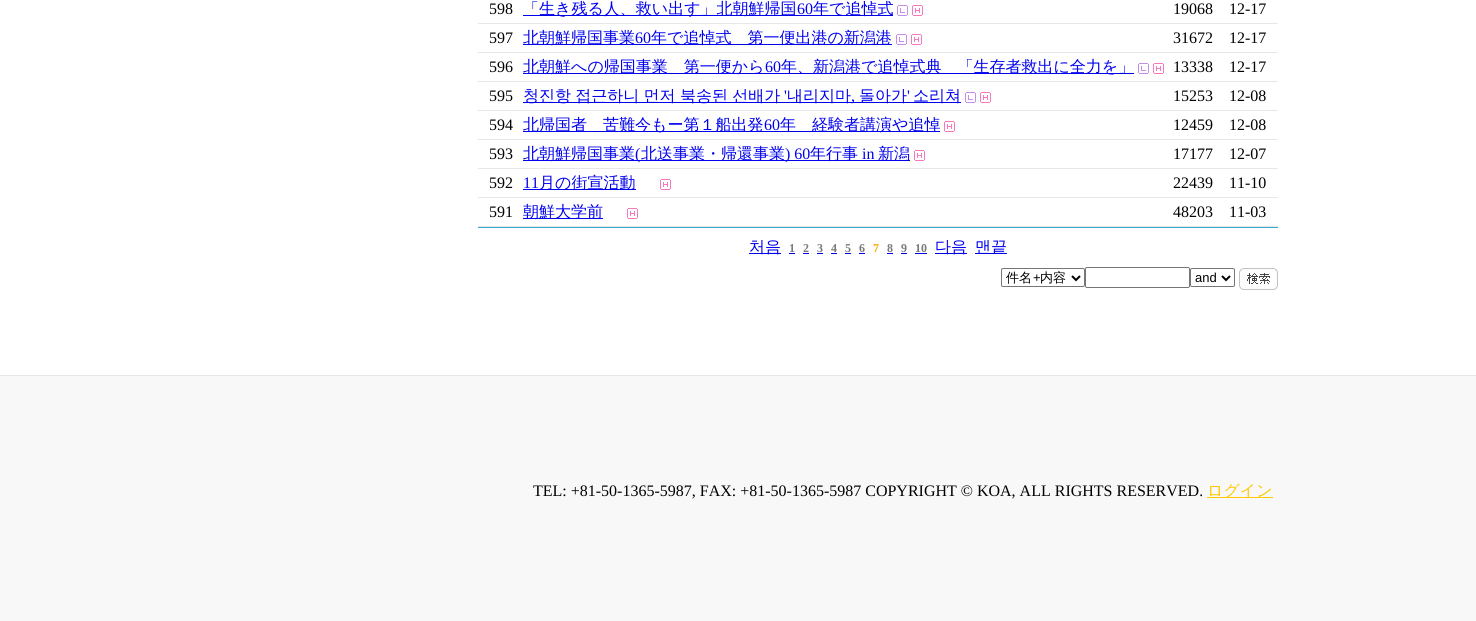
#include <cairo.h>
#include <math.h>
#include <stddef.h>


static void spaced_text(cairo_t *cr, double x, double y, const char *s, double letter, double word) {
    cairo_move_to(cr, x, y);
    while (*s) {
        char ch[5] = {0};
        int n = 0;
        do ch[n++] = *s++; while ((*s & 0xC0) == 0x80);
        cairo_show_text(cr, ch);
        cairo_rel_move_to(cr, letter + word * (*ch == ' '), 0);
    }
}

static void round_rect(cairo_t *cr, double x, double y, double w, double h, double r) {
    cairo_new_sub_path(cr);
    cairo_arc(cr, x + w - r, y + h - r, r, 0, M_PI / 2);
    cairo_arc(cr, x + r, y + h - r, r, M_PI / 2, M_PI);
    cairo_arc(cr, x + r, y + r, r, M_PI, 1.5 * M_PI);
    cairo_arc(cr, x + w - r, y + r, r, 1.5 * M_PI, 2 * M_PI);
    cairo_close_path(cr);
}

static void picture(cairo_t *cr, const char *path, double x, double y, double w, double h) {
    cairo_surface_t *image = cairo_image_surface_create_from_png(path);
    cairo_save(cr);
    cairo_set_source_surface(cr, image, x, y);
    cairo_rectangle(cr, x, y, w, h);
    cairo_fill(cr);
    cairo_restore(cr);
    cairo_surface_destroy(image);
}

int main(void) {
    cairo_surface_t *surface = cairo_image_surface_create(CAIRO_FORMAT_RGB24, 1476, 621);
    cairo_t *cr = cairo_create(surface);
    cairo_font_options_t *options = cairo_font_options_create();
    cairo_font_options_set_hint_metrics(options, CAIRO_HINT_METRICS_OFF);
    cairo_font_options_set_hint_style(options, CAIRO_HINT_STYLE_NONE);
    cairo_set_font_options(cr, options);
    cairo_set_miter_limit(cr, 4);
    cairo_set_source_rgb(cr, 1, 1, 1);
    cairo_paint(cr);
    cairo_select_font_face(cr, "Liberation Serif", CAIRO_FONT_SLANT_NORMAL, CAIRO_FONT_WEIGHT_NORMAL);
    cairo_set_font_size(cr, 16);
    cairo_set_source_rgb(cr, 0, 0, 0);
    cairo_move_to(cr, 489, 14);
    cairo_show_text(cr, "598");
    cairo_set_source_rgb(cr, 0, 0, 0.933);
    cairo_rectangle(cr, 523, 15, 370, 1);
    cairo_fill(cr);
    cairo_select_font_face(cr, "WenQuanYi Zen Hei Medium", CAIRO_FONT_SLANT_NORMAL, CAIRO_FONT_WEIGHT_NORMAL);
    cairo_move_to(cr, 523, 14);
    cairo_show_text(cr, "「生き残る人、救い出す」北朝鮮帰国");
    cairo_select_font_face(cr, "Liberation Serif", CAIRO_FONT_SLANT_NORMAL, CAIRO_FONT_WEIGHT_NORMAL);
    cairo_move_to(cr, 797, 14);
    cairo_show_text(cr, "60");
    cairo_select_font_face(cr, "WenQuanYi Zen Hei Medium", CAIRO_FONT_SLANT_NORMAL, CAIRO_FONT_WEIGHT_NORMAL);
    cairo_move_to(cr, 813, 14);
    cairo_show_text(cr, "年で追悼式");
    picture(cr, "img1.png", 897, 5, 11, 11);
    picture(cr, "img2.png", 912, 5, 11, 11);
    cairo_select_font_face(cr, "Liberation Serif", CAIRO_FONT_SLANT_NORMAL, CAIRO_FONT_WEIGHT_NORMAL);
    cairo_set_source_rgb(cr, 0, 0, 0);
    cairo_move_to(cr, 1173, 14);
    cairo_show_text(cr, "19068");
    cairo_move_to(cr, 1229, 14);
    cairo_show_text(cr, "12-17");
    cairo_set_source_rgb(cr, 0.906, 0.906, 0.906);
    cairo_rectangle(cr, 478, 23, 800, 1);
    cairo_fill(cr);
    cairo_set_source_rgb(cr, 0, 0, 0);
    cairo_move_to(cr, 489, 43);
    cairo_show_text(cr, "597");
    cairo_set_source_rgb(cr, 0, 0, 0.933);
    cairo_rectangle(cr, 523, 44, 369, 1);
    cairo_fill(cr);
    cairo_select_font_face(cr, "WenQuanYi Zen Hei Medium", CAIRO_FONT_SLANT_NORMAL, CAIRO_FONT_WEIGHT_NORMAL);
    cairo_move_to(cr, 523, 43);
    cairo_show_text(cr, "北朝鮮帰国事業");
    cairo_select_font_face(cr, "Liberation Serif", CAIRO_FONT_SLANT_NORMAL, CAIRO_FONT_WEIGHT_NORMAL);
    cairo_move_to(cr, 635, 43);
    cairo_show_text(cr, "60");
    cairo_select_font_face(cr, "WenQuanYi Zen Hei Medium", CAIRO_FONT_SLANT_NORMAL, CAIRO_FONT_WEIGHT_NORMAL);
    cairo_move_to(cr, 651, 43);
    cairo_show_text(cr, "年で追悼式　第一便出港の新潟港");
    picture(cr, "img1.png", 896, 34, 11, 11);
    picture(cr, "img2.png", 911, 34, 11, 11);
    cairo_select_font_face(cr, "Liberation Serif", CAIRO_FONT_SLANT_NORMAL, CAIRO_FONT_WEIGHT_NORMAL);
    cairo_set_source_rgb(cr, 0, 0, 0);
    cairo_move_to(cr, 1173, 43);
    cairo_show_text(cr, "31672");
    cairo_move_to(cr, 1229, 43);
    cairo_show_text(cr, "12-17");
    cairo_set_source_rgb(cr, 0.906, 0.906, 0.906);
    cairo_rectangle(cr, 478, 52, 800, 1);
    cairo_fill(cr);
    cairo_set_source_rgb(cr, 0, 0, 0);
    cairo_move_to(cr, 489, 72);
    cairo_show_text(cr, "596");
    cairo_set_source_rgb(cr, 0, 0, 0.933);
    cairo_rectangle(cr, 523, 73, 611, 1);
    cairo_fill(cr);
    cairo_select_font_face(cr, "WenQuanYi Zen Hei Medium", CAIRO_FONT_SLANT_NORMAL, CAIRO_FONT_WEIGHT_NORMAL);
    cairo_move_to(cr, 523, 72);
    cairo_show_text(cr, "北朝鮮への帰国事業　第一便から");
    cairo_select_font_face(cr, "Liberation Serif", CAIRO_FONT_SLANT_NORMAL, CAIRO_FONT_WEIGHT_NORMAL);
    cairo_move_to(cr, 765, 72);
    cairo_show_text(cr, "60");
    cairo_select_font_face(cr, "WenQuanYi Zen Hei Medium", CAIRO_FONT_SLANT_NORMAL, CAIRO_FONT_WEIGHT_NORMAL);
    cairo_move_to(cr, 781, 72);
    cairo_show_text(cr, "年、新潟港で追悼式典　「生存者救出に全力を」");
    picture(cr, "img1.png", 1138, 63, 11, 11);
    picture(cr, "img2.png", 1153, 63, 11, 11);
    cairo_select_font_face(cr, "Liberation Serif", CAIRO_FONT_SLANT_NORMAL, CAIRO_FONT_WEIGHT_NORMAL);
    cairo_set_source_rgb(cr, 0, 0, 0);
    cairo_move_to(cr, 1173, 72);
    cairo_show_text(cr, "13338");
    cairo_move_to(cr, 1229, 72);
    cairo_show_text(cr, "12-17");
    cairo_set_source_rgb(cr, 0.906, 0.906, 0.906);
    cairo_rectangle(cr, 478, 81, 800, 1);
    cairo_fill(cr);
    cairo_set_source_rgb(cr, 0, 0, 0);
    cairo_move_to(cr, 489, 101);
    cairo_show_text(cr, "595");
    cairo_set_source_rgb(cr, 0, 0, 0.933);
    cairo_rectangle(cr, 523, 102, 438, 1);
    cairo_fill(cr);
    cairo_select_font_face(cr, "WenQuanYi Zen Hei Medium", CAIRO_FONT_SLANT_NORMAL, CAIRO_FONT_WEIGHT_NORMAL);
    spaced_text(cr, 523, 101, "청진항 접근하니 먼저 북송된 선배가", 0, -0.5);
    cairo_select_font_face(cr, "Liberation Serif", CAIRO_FONT_SLANT_NORMAL, CAIRO_FONT_WEIGHT_NORMAL);
    cairo_move_to(cr, 784, 101);
    cairo_show_text(cr, "'");
    cairo_select_font_face(cr, "WenQuanYi Zen Hei Medium", CAIRO_FONT_SLANT_NORMAL, CAIRO_FONT_WEIGHT_NORMAL);
    cairo_move_to(cr, 787, 101);
    cairo_show_text(cr, "내리지마");
    cairo_select_font_face(cr, "Liberation Serif", CAIRO_FONT_SLANT_NORMAL, CAIRO_FONT_WEIGHT_NORMAL);
    cairo_move_to(cr, 851, 101);
    cairo_show_text(cr, ",");
    cairo_select_font_face(cr, "WenQuanYi Zen Hei Medium", CAIRO_FONT_SLANT_NORMAL, CAIRO_FONT_WEIGHT_NORMAL);
    cairo_move_to(cr, 859, 101);
    cairo_show_text(cr, "돌아가");
    cairo_select_font_face(cr, "Liberation Serif", CAIRO_FONT_SLANT_NORMAL, CAIRO_FONT_WEIGHT_NORMAL);
    cairo_move_to(cr, 907, 101);
    cairo_show_text(cr, "'");
    cairo_select_font_face(cr, "WenQuanYi Zen Hei Medium", CAIRO_FONT_SLANT_NORMAL, CAIRO_FONT_WEIGHT_NORMAL);
    cairo_move_to(cr, 913, 101);
    cairo_show_text(cr, "소리쳐");
    picture(cr, "img1.png", 965, 92, 11, 11);
    picture(cr, "img2.png", 980, 92, 11, 11);
    cairo_select_font_face(cr, "Liberation Serif", CAIRO_FONT_SLANT_NORMAL, CAIRO_FONT_WEIGHT_NORMAL);
    cairo_set_source_rgb(cr, 0, 0, 0);
    cairo_move_to(cr, 1173, 101);
    cairo_show_text(cr, "15253");
    cairo_move_to(cr, 1229, 101);
    cairo_show_text(cr, "12-08");
    cairo_set_source_rgb(cr, 0.906, 0.906, 0.906);
    cairo_rectangle(cr, 478, 110, 800, 1);
    cairo_fill(cr);
    cairo_set_source_rgb(cr, 0, 0, 0);
    cairo_move_to(cr, 489, 130);
    cairo_show_text(cr, "594");
    cairo_set_source_rgb(cr, 0, 0, 0.933);
    cairo_rectangle(cr, 523, 131, 417, 1);
    cairo_fill(cr);
    cairo_select_font_face(cr, "WenQuanYi Zen Hei Medium", CAIRO_FONT_SLANT_NORMAL, CAIRO_FONT_WEIGHT_NORMAL);
    cairo_move_to(cr, 523, 130);
    cairo_show_text(cr, "北帰国者　苦難今もー第１船出発");
    cairo_select_font_face(cr, "Liberation Serif", CAIRO_FONT_SLANT_NORMAL, CAIRO_FONT_WEIGHT_NORMAL);
    cairo_move_to(cr, 764, 130);
    cairo_show_text(cr, "60");
    cairo_select_font_face(cr, "WenQuanYi Zen Hei Medium", CAIRO_FONT_SLANT_NORMAL, CAIRO_FONT_WEIGHT_NORMAL);
    cairo_move_to(cr, 780, 130);
    cairo_show_text(cr, "年　経験者講演や追悼");
    picture(cr, "img2.png", 944, 121, 11, 11);
    cairo_select_font_face(cr, "Liberation Serif", CAIRO_FONT_SLANT_NORMAL, CAIRO_FONT_WEIGHT_NORMAL);
    cairo_set_source_rgb(cr, 0, 0, 0);
    cairo_move_to(cr, 1173, 130);
    cairo_show_text(cr, "12459");
    cairo_move_to(cr, 1229, 130);
    cairo_show_text(cr, "12-08");
    cairo_set_source_rgb(cr, 0.906, 0.906, 0.906);
    cairo_rectangle(cr, 478, 139, 800, 1);
    cairo_fill(cr);
    cairo_set_source_rgb(cr, 0, 0, 0);
    cairo_move_to(cr, 489, 159);
    cairo_show_text(cr, "593");
    cairo_set_source_rgb(cr, 0, 0, 0.933);
    cairo_rectangle(cr, 523, 160, 387, 1);
    cairo_fill(cr);
    cairo_select_font_face(cr, "WenQuanYi Zen Hei Medium", CAIRO_FONT_SLANT_NORMAL, CAIRO_FONT_WEIGHT_NORMAL);
    cairo_move_to(cr, 523, 159);
    cairo_show_text(cr, "北朝鮮帰国事業");
    cairo_select_font_face(cr, "Liberation Serif", CAIRO_FONT_SLANT_NORMAL, CAIRO_FONT_WEIGHT_NORMAL);
    cairo_move_to(cr, 635, 159);
    cairo_show_text(cr, "(");
    cairo_select_font_face(cr, "WenQuanYi Zen Hei Medium", CAIRO_FONT_SLANT_NORMAL, CAIRO_FONT_WEIGHT_NORMAL);
    cairo_move_to(cr, 641, 159);
    cairo_show_text(cr, "北送事業・帰還事業");
    cairo_select_font_face(cr, "Liberation Serif", CAIRO_FONT_SLANT_NORMAL, CAIRO_FONT_WEIGHT_NORMAL);
    cairo_move_to(cr, 785, 159);
    cairo_show_text(cr, ") 60");
    cairo_select_font_face(cr, "WenQuanYi Zen Hei Medium", CAIRO_FONT_SLANT_NORMAL, CAIRO_FONT_WEIGHT_NORMAL);
    cairo_move_to(cr, 810, 159);
    cairo_show_text(cr, "年行事");
    cairo_select_font_face(cr, "Liberation Serif", CAIRO_FONT_SLANT_NORMAL, CAIRO_FONT_WEIGHT_NORMAL);
    cairo_move_to(cr, 862, 159);
    cairo_show_text(cr, "in");
    cairo_select_font_face(cr, "WenQuanYi Zen Hei Medium", CAIRO_FONT_SLANT_NORMAL, CAIRO_FONT_WEIGHT_NORMAL);
    cairo_move_to(cr, 878, 159);
    cairo_show_text(cr, "新潟");
    picture(cr, "img2.png", 914, 150, 11, 11);
    cairo_select_font_face(cr, "Liberation Serif", CAIRO_FONT_SLANT_NORMAL, CAIRO_FONT_WEIGHT_NORMAL);
    cairo_set_source_rgb(cr, 0, 0, 0);
    cairo_move_to(cr, 1173, 159);
    cairo_show_text(cr, "17177");
    cairo_move_to(cr, 1229, 159);
    cairo_show_text(cr, "12-07");
    cairo_set_source_rgb(cr, 0.906, 0.906, 0.906);
    cairo_rectangle(cr, 478, 168, 800, 1);
    cairo_fill(cr);
    cairo_set_source_rgb(cr, 0, 0, 0);
    cairo_move_to(cr, 489, 188);
    cairo_show_text(cr, "592");
    cairo_set_source_rgb(cr, 0, 0, 0.933);
    cairo_move_to(cr, 523, 188);
    cairo_show_text(cr, "11");
    cairo_rectangle(cr, 523, 189, 113, 1);
    cairo_fill(cr);
    cairo_select_font_face(cr, "WenQuanYi Zen Hei Medium", CAIRO_FONT_SLANT_NORMAL, CAIRO_FONT_WEIGHT_NORMAL);
    cairo_move_to(cr, 539, 188);
    cairo_show_text(cr, "月の街宣活動");
    picture(cr, "img2.png", 660, 179, 11, 11);
    cairo_select_font_face(cr, "Liberation Serif", CAIRO_FONT_SLANT_NORMAL, CAIRO_FONT_WEIGHT_NORMAL);
    cairo_set_source_rgb(cr, 0, 0, 0);
    cairo_move_to(cr, 1173, 188);
    cairo_show_text(cr, "22439");
    cairo_move_to(cr, 1229, 188);
    cairo_show_text(cr, "11-10");
    cairo_set_source_rgb(cr, 0.906, 0.906, 0.906);
    cairo_rectangle(cr, 478, 197, 800, 1);
    cairo_fill(cr);
    cairo_set_source_rgb(cr, 0, 0, 0);
    cairo_move_to(cr, 489, 217);
    cairo_show_text(cr, "591");
    cairo_set_source_rgb(cr, 0, 0, 0.933);
    cairo_rectangle(cr, 523, 218, 80, 1);
    cairo_fill(cr);
    cairo_select_font_face(cr, "WenQuanYi Zen Hei Medium", CAIRO_FONT_SLANT_NORMAL, CAIRO_FONT_WEIGHT_NORMAL);
    cairo_move_to(cr, 523, 217);
    cairo_show_text(cr, "朝鮮大学前");
    picture(cr, "img2.png", 627, 208, 11, 11);
    cairo_select_font_face(cr, "Liberation Serif", CAIRO_FONT_SLANT_NORMAL, CAIRO_FONT_WEIGHT_NORMAL);
    cairo_set_source_rgb(cr, 0, 0, 0);
    cairo_move_to(cr, 1173, 217);
    cairo_show_text(cr, "48203");
    cairo_move_to(cr, 1229, 217);
    cairo_show_text(cr, "11-03");
    cairo_set_source_rgb(cr, 0.906, 0.906, 0.906);
    cairo_rectangle(cr, 478, 226, 800, 1);
    cairo_fill(cr);
    cairo_set_source_rgb(cr, 0.212, 0.667, 0.827);
    cairo_rectangle(cr, 478, 227, 800, 1);
    cairo_fill(cr);
    cairo_set_source_rgb(cr, 0, 0, 0.933);
    cairo_rectangle(cr, 749, 253, 32, 1);
    cairo_fill(cr);
    cairo_select_font_face(cr, "WenQuanYi Zen Hei Medium", CAIRO_FONT_SLANT_NORMAL, CAIRO_FONT_WEIGHT_NORMAL);
    cairo_move_to(cr, 749, 252);
    cairo_show_text(cr, "처음");
    cairo_select_font_face(cr, "Liberation Serif", CAIRO_FONT_SLANT_NORMAL, CAIRO_FONT_WEIGHT_BOLD);
    cairo_set_font_size(cr, 12);
    cairo_set_source_rgb(cr, 0.475, 0.475, 0.475);
    cairo_move_to(cr, 789, 252);
    cairo_show_text(cr, "1");
    cairo_set_source_rgb(cr, 0, 0, 0.933);
    cairo_rectangle(cr, 789, 253, 6, 1);
    cairo_fill(cr);
    cairo_set_source_rgb(cr, 0.475, 0.475, 0.475);
    cairo_move_to(cr, 803, 252);
    cairo_show_text(cr, "2");
    cairo_set_source_rgb(cr, 0, 0, 0.933);
    cairo_rectangle(cr, 803, 253, 6, 1);
    cairo_fill(cr);
    cairo_set_source_rgb(cr, 0.475, 0.475, 0.475);
    cairo_move_to(cr, 817, 252);
    cairo_show_text(cr, "3");
    cairo_set_source_rgb(cr, 0, 0, 0.933);
    cairo_rectangle(cr, 817, 253, 6, 1);
    cairo_fill(cr);
    cairo_set_source_rgb(cr, 0.475, 0.475, 0.475);
    cairo_move_to(cr, 831, 252);
    cairo_show_text(cr, "4");
    cairo_set_source_rgb(cr, 0, 0, 0.933);
    cairo_rectangle(cr, 831, 253, 6, 1);
    cairo_fill(cr);
    cairo_set_source_rgb(cr, 0.475, 0.475, 0.475);
    cairo_move_to(cr, 845, 252);
    cairo_show_text(cr, "5");
    cairo_set_source_rgb(cr, 0, 0, 0.933);
    cairo_rectangle(cr, 845, 253, 6, 1);
    cairo_fill(cr);
    cairo_set_source_rgb(cr, 0.475, 0.475, 0.475);
    cairo_move_to(cr, 859, 252);
    cairo_show_text(cr, "6");
    cairo_set_source_rgb(cr, 0, 0, 0.933);
    cairo_rectangle(cr, 859, 253, 6, 1);
    cairo_fill(cr);
    cairo_set_source_rgb(cr, 1, 0.647, 0);
    cairo_move_to(cr, 873, 252);
    cairo_show_text(cr, "7");
    cairo_set_source_rgb(cr, 0.475, 0.475, 0.475);
    cairo_move_to(cr, 887, 252);
    cairo_show_text(cr, "8");
    cairo_set_source_rgb(cr, 0, 0, 0.933);
    cairo_rectangle(cr, 887, 253, 6, 1);
    cairo_fill(cr);
    cairo_set_source_rgb(cr, 0.475, 0.475, 0.475);
    cairo_move_to(cr, 901, 252);
    cairo_show_text(cr, "9");
    cairo_set_source_rgb(cr, 0, 0, 0.933);
    cairo_rectangle(cr, 901, 253, 6, 1);
    cairo_fill(cr);
    cairo_set_source_rgb(cr, 0.475, 0.475, 0.475);
    cairo_move_to(cr, 915, 252);
    cairo_show_text(cr, "10");
    cairo_set_source_rgb(cr, 0, 0, 0.933);
    cairo_rectangle(cr, 915, 253, 12, 1);
    cairo_fill(cr);
    cairo_rectangle(cr, 935, 253, 32, 1);
    cairo_fill(cr);
    cairo_select_font_face(cr, "WenQuanYi Zen Hei Medium", CAIRO_FONT_SLANT_NORMAL, CAIRO_FONT_WEIGHT_NORMAL);
    cairo_set_font_size(cr, 16);
    cairo_move_to(cr, 935, 252);
    cairo_show_text(cr, "다음");
    cairo_rectangle(cr, 975, 253, 32, 1);
    cairo_fill(cr);
    cairo_move_to(cr, 975, 252);
    cairo_show_text(cr, "맨끝");
    round_rect(cr, 1001.5, 268.5, 83, 18, 1.5);
    cairo_set_source_rgb(cr, 0.463, 0.463, 0.463);
    cairo_set_line_width(cr, 1);
    cairo_stroke(cr);
    cairo_new_path(cr);
    cairo_move_to(cr, 1072, 276);
    cairo_line_to(cr, 1076, 280);
    cairo_line_to(cr, 1080, 276);
    cairo_set_source_rgb(cr, 0, 0, 0);
    cairo_set_line_width(cr, 2);
    cairo_stroke(cr);
    cairo_set_font_size(cr, 13);
    cairo_move_to(cr, 1006, 282);
    cairo_show_text(cr, "件名");
    cairo_select_font_face(cr, "Liberation Sans", CAIRO_FONT_SLANT_NORMAL, CAIRO_FONT_WEIGHT_NORMAL);
    cairo_move_to(cr, 1033, 282);
    cairo_show_text(cr, "+");
    cairo_select_font_face(cr, "WenQuanYi Zen Hei Medium", CAIRO_FONT_SLANT_NORMAL, CAIRO_FONT_WEIGHT_NORMAL);
    cairo_move_to(cr, 1040, 282);
    cairo_show_text(cr, "内容");
    round_rect(cr, 1085.5, 267.5, 104, 20, 1.5);
    cairo_set_source_rgb(cr, 0.463, 0.463, 0.463);
    cairo_set_line_width(cr, 1);
    cairo_stroke(cr);
    round_rect(cr, 1190.5, 268.5, 44, 18, 1.5);
    cairo_stroke(cr);
    cairo_new_path(cr);
    cairo_move_to(cr, 1222, 276);
    cairo_line_to(cr, 1226, 280);
    cairo_line_to(cr, 1230, 276);
    cairo_set_source_rgb(cr, 0, 0, 0);
    cairo_set_line_width(cr, 2);
    cairo_stroke(cr);
    cairo_select_font_face(cr, "Liberation Sans", CAIRO_FONT_SLANT_NORMAL, CAIRO_FONT_WEIGHT_NORMAL);
    cairo_move_to(cr, 1195, 282);
    cairo_show_text(cr, "and");
    picture(cr, "img3.png", 1239, 268, 39, 22);
    cairo_set_source_rgb(cr, 0.969, 0.969, 0.973);
    cairo_rectangle(cr, 0, 376, 1476, 245);
    cairo_fill(cr);
    cairo_set_source_rgb(cr, 0.898, 0.91, 0.918);
    cairo_rectangle(cr, 0, 375, 1476, 1);
    cairo_fill(cr);
    cairo_select_font_face(cr, "Liberation Serif", CAIRO_FONT_SLANT_NORMAL, CAIRO_FONT_WEIGHT_NORMAL);
    cairo_set_font_size(cr, 16);
    cairo_set_source_rgb(cr, 0, 0, 0);
    cairo_move_to(cr, 533, 496);
    cairo_show_text(cr, "TEL: +81-50-1365-5987, FAX: +81-50-1365-5987 COPYRIGHT © KOA, ALL RIGHTS RESERVED.");
    cairo_set_source_rgb(cr, 1, 0.784, 0);
    cairo_rectangle(cr, 1207, 497, 66, 1);
    cairo_fill(cr);
    cairo_select_font_face(cr, "WenQuanYi Zen Hei Medium", CAIRO_FONT_SLANT_NORMAL, CAIRO_FONT_WEIGHT_NORMAL);
    cairo_move_to(cr, 1207, 496);
    cairo_show_text(cr, "ログイン");
    cairo_surface_write_to_png(surface, "page.png");
    cairo_font_options_destroy(options);
    cairo_destroy(cr);
    cairo_surface_destroy(surface);
    return 0;
}
